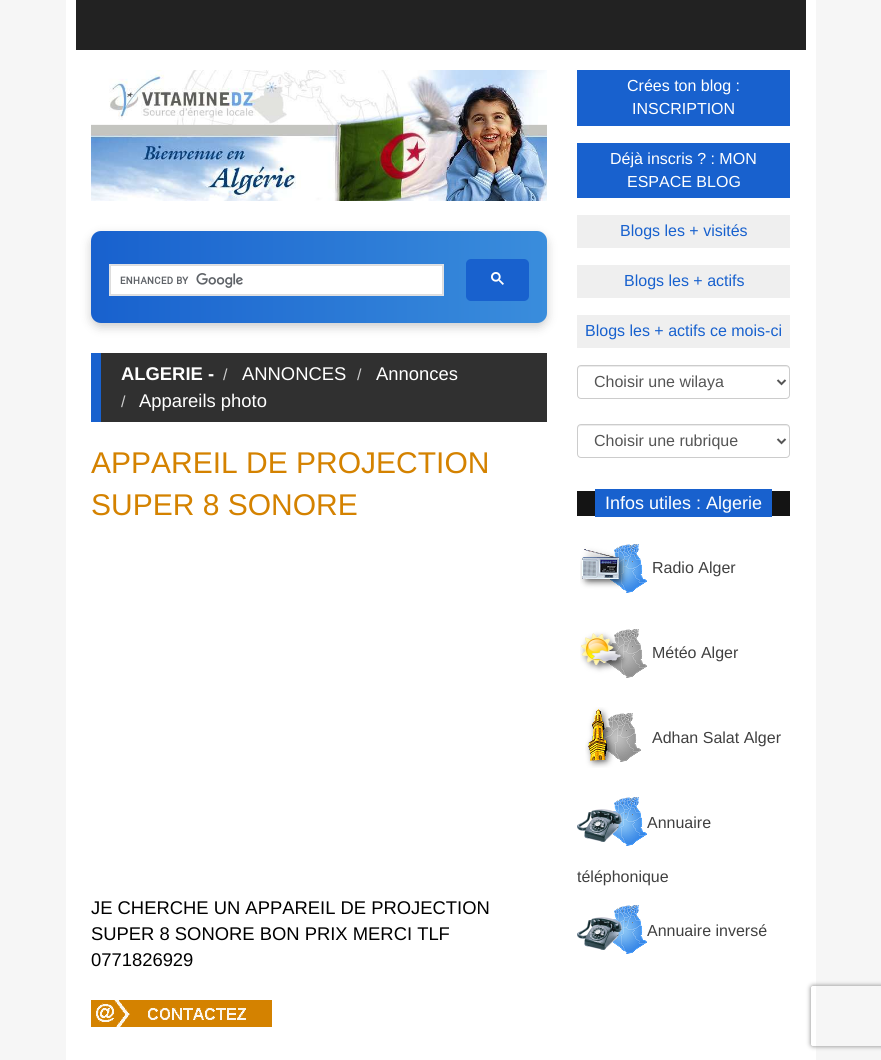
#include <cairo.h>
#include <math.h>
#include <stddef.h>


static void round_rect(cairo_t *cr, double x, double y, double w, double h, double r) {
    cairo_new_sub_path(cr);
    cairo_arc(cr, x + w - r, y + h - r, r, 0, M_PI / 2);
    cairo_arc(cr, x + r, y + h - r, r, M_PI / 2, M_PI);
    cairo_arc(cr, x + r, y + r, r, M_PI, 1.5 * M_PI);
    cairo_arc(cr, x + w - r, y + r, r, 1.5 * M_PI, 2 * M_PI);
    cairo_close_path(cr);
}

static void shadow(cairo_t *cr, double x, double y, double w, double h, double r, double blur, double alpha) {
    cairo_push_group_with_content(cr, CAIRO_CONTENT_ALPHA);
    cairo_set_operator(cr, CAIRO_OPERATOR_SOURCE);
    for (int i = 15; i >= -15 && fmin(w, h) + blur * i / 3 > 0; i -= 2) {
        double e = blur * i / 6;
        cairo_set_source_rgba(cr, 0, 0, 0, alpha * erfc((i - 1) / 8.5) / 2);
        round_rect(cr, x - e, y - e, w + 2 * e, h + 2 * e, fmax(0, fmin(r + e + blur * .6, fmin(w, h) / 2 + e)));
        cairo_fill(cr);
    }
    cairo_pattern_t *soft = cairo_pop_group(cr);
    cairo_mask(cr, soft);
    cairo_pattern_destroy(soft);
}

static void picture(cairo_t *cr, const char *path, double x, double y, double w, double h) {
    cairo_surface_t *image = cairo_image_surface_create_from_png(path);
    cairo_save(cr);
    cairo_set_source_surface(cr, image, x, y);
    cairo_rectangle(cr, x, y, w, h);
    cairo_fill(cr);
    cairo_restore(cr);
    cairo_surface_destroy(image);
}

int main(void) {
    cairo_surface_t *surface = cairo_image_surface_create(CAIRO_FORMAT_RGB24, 881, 1060);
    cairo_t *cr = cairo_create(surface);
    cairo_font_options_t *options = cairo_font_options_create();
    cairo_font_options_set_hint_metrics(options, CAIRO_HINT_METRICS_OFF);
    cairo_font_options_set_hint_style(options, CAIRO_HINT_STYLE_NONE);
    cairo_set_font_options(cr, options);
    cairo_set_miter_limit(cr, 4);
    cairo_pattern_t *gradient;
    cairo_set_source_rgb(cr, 0.961, 0.961, 0.961);
    cairo_paint(cr);
    cairo_set_source_rgb(cr, 1, 1, 1);
    cairo_rectangle(cr, 66, 0, 750, 1060);
    cairo_fill(cr);
    cairo_set_source_rgb(cr, 0.133, 0.133, 0.133);
    cairo_rectangle(cr, 76, 0, 730, 50);
    cairo_fill(cr);
    picture(cr, "img1.png", 91, 70, 456, 131);
    cairo_set_source_rgb(cr, 0, 0, 0);
    shadow(cr, 91, 235, 456, 92, 10, 5, 0.2);
    gradient = cairo_pattern_create_linear(91, 277, 547, 277);
    cairo_pattern_add_color_stop_rgba(gradient, 0, 0.094, 0.38, 0.808, 1);
    cairo_pattern_add_color_stop_rgba(gradient, 1, 0.227, 0.553, 0.863, 1);
    cairo_set_source(cr, gradient);
    cairo_pattern_destroy(gradient);
    round_rect(cr, 91, 231, 456, 92, 10);
    cairo_fill(cr);
    cairo_set_source_rgb(cr, 1, 1, 1);
    cairo_rectangle(cr, 111, 266, 331, 28);
    cairo_fill(cr);
    cairo_rectangle(cr, 109.5, 264.5, 334, 31);
    cairo_set_source_rgb(cr, 0.875, 0.882, 0.898);
    cairo_set_line_width(cr, 1);
    cairo_stroke(cr);
    cairo_set_source_rgb(cr, 0.867, 0.867, 0.867);
    cairo_rectangle(cr, 110, 265, 333, 1);
    cairo_fill(cr);
    cairo_rectangle(cr, 442, 265, 1, 30);
    cairo_fill(cr);
    cairo_rectangle(cr, 110, 294, 333, 1);
    cairo_fill(cr);
    cairo_rectangle(cr, 110, 265, 1, 30);
    cairo_fill(cr);
    picture(cr, "img2.png", 120, 273, 123, 15);
    cairo_set_source_rgb(cr, 0.094, 0.38, 0.808);
    round_rect(cr, 466, 259, 63, 42, 5);
    cairo_fill(cr);
    picture(cr, "img3.png", 491, 272, 13, 13);
    cairo_set_source_rgb(cr, 0.188, 0.188, 0.188);
    cairo_rectangle(cr, 101, 353, 446, 69);
    cairo_fill(cr);
    cairo_set_source_rgb(cr, 0.094, 0.38, 0.808);
    cairo_rectangle(cr, 91, 353, 10, 69);
    cairo_fill(cr);
    cairo_select_font_face(cr, "Liberation Sans", CAIRO_FONT_SLANT_NORMAL, CAIRO_FONT_WEIGHT_BOLD);
    cairo_set_font_size(cr, 18.4);
    cairo_set_source_rgb(cr, 1, 1, 1);
    cairo_move_to(cr, 121, 380);
    cairo_show_text(cr, "ALGERIE -");
    cairo_select_font_face(cr, "Liberation Sans", CAIRO_FONT_SLANT_NORMAL, CAIRO_FONT_WEIGHT_NORMAL);
    cairo_set_font_size(cr, 16);
    cairo_set_source_rgb(cr, 0.8, 0.8, 0.8);
    cairo_move_to(cr, 223, 380);
    cairo_show_text(cr, "/");
    cairo_set_font_size(cr, 18.4);
    cairo_set_source_rgb(cr, 1, 1, 1);
    cairo_move_to(cr, 242, 380);
    cairo_show_text(cr, "ANNONCES");
    cairo_set_font_size(cr, 16);
    cairo_set_source_rgb(cr, 0.8, 0.8, 0.8);
    cairo_move_to(cr, 357, 380);
    cairo_show_text(cr, "/");
    cairo_set_font_size(cr, 18.4);
    cairo_set_source_rgb(cr, 1, 1, 1);
    cairo_move_to(cr, 376, 380);
    cairo_show_text(cr, "Annonces");
    cairo_set_font_size(cr, 16);
    cairo_set_source_rgb(cr, 0.8, 0.8, 0.8);
    cairo_move_to(cr, 121, 407);
    cairo_show_text(cr, "/");
    cairo_set_font_size(cr, 18.4);
    cairo_set_source_rgb(cr, 1, 1, 1);
    cairo_move_to(cr, 139, 407);
    cairo_show_text(cr, "Appareils photo");
    cairo_set_font_size(cr, 30);
    cairo_set_source_rgb(cr, 0.831, 0.51, 0);
    cairo_move_to(cr, 91, 473);
    cairo_show_text(cr, "APPAREIL DE PROJECTION");
    cairo_move_to(cr, 91, 515);
    cairo_show_text(cr, "SUPER 8 SONORE");
    cairo_set_font_size(cr, 18.4);
    cairo_set_source_rgb(cr, 0, 0, 0);
    cairo_move_to(cr, 91, 914);
    cairo_show_text(cr, "JE CHERCHE UN APPAREIL DE PROJECTION");
    cairo_move_to(cr, 91, 940);
    cairo_show_text(cr, "SUPER 8 SONORE BON PRIX MERCI TLF");
    cairo_move_to(cr, 91, 966);
    cairo_show_text(cr, "0771826929");
    picture(cr, "img4.png", 91, 1000, 181, 27);
    cairo_save(cr);
    cairo_set_fill_rule(cr, CAIRO_FILL_RULE_EVEN_ODD);
    cairo_new_path(cr);
    cairo_move_to(cr, 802, 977);
    cairo_line_to(cr, 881, 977);
    cairo_line_to(cr, 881, 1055);
    cairo_line_to(cr, 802, 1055);
    cairo_close_path(cr);
    cairo_move_to(cr, 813, 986);
    cairo_line_to(cr, 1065, 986);
    cairo_curve_to(cr, 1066, 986, 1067, 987, 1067, 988);
    cairo_line_to(cr, 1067, 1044);
    cairo_curve_to(cr, 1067, 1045, 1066, 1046, 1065, 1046);
    cairo_line_to(cr, 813, 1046);
    cairo_curve_to(cr, 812, 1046, 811, 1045, 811, 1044);
    cairo_line_to(cr, 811, 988);
    cairo_curve_to(cr, 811, 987, 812, 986, 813, 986);
    cairo_close_path(cr);
    cairo_clip(cr);
    cairo_set_source_rgb(cr, 0.502, 0.502, 0.502);
    shadow(cr, 811, 986, 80, 60, 2, 2.5, 1);
    cairo_restore(cr);
    cairo_set_source_rgb(cr, 0.094, 0.38, 0.808);
    cairo_rectangle(cr, 577, 70, 213, 56);
    cairo_fill(cr);
    cairo_set_font_size(cr, 16);
    cairo_set_source_rgb(cr, 1, 1, 1);
    cairo_move_to(cr, 627, 91);
    cairo_show_text(cr, "Crées ton blog :");
    cairo_move_to(cr, 632, 114);
    cairo_show_text(cr, "INSCRIPTION");
    cairo_set_source_rgb(cr, 0.094, 0.38, 0.808);
    cairo_rectangle(cr, 577, 143, 213, 55);
    cairo_fill(cr);
    cairo_set_source_rgb(cr, 1, 1, 1);
    cairo_move_to(cr, 610, 164);
    cairo_show_text(cr, "Déjà inscris ? : MON");
    cairo_move_to(cr, 627, 187);
    cairo_show_text(cr, "ESPACE BLOG");
    cairo_set_source_rgb(cr, 0.937, 0.937, 0.937);
    cairo_rectangle(cr, 577, 215, 213, 33);
    cairo_fill(cr);
    cairo_set_source_rgb(cr, 0.094, 0.38, 0.808);
    cairo_move_to(cr, 620, 236);
    cairo_show_text(cr, "Blogs les + visités");
    cairo_set_source_rgb(cr, 0.937, 0.937, 0.937);
    cairo_rectangle(cr, 577, 265, 213, 33);
    cairo_fill(cr);
    cairo_set_source_rgb(cr, 0.094, 0.38, 0.808);
    cairo_move_to(cr, 624, 286);
    cairo_show_text(cr, "Blogs les + actifs");
    cairo_set_source_rgb(cr, 0.937, 0.937, 0.937);
    cairo_rectangle(cr, 577, 315, 213, 33);
    cairo_fill(cr);
    cairo_set_source_rgb(cr, 0.094, 0.38, 0.808);
    cairo_move_to(cr, 585, 336);
    cairo_show_text(cr, "Blogs les + actifs ce mois-ci");
    cairo_set_source_rgb(cr, 0.925, 0.925, 0.925);
    cairo_new_path(cr);
    cairo_move_to(cr, 581, 367);
    cairo_line_to(cr, 786, 367);
    cairo_curve_to(cr, 788, 367, 789, 368, 789, 370);
    cairo_line_to(cr, 789, 369);
    cairo_curve_to(cr, 789, 367, 788, 366, 786, 366);
    cairo_line_to(cr, 581, 366);
    cairo_curve_to(cr, 579, 366, 578, 367, 578, 369);
    cairo_line_to(cr, 578, 370);
    cairo_curve_to(cr, 578, 368, 579, 367, 581, 367);
    cairo_close_path(cr);
    cairo_fill(cr);
    round_rect(cr, 577.5, 365.5, 212, 33, 3.5);
    cairo_set_source_rgb(cr, 0.8, 0.8, 0.8);
    cairo_stroke(cr);
    cairo_new_path(cr);
    cairo_move_to(cr, 777.5, 380);
    cairo_line_to(cr, 781.5, 384);
    cairo_line_to(cr, 785.5, 380);
    cairo_set_source_rgb(cr, 0.333, 0.333, 0.333);
    cairo_set_line_width(cr, 2);
    cairo_stroke(cr);
    cairo_move_to(cr, 594, 387);
    cairo_show_text(cr, "Choisir une wilaya");
    cairo_set_source_rgb(cr, 0.925, 0.925, 0.925);
    cairo_new_path(cr);
    cairo_move_to(cr, 581, 426);
    cairo_line_to(cr, 786, 426);
    cairo_curve_to(cr, 788, 426, 789, 427, 789, 429);
    cairo_line_to(cr, 789, 428);
    cairo_curve_to(cr, 789, 426, 788, 425, 786, 425);
    cairo_line_to(cr, 581, 425);
    cairo_curve_to(cr, 579, 425, 578, 426, 578, 428);
    cairo_line_to(cr, 578, 429);
    cairo_curve_to(cr, 578, 427, 579, 426, 581, 426);
    cairo_close_path(cr);
    cairo_fill(cr);
    round_rect(cr, 577.5, 424.5, 212, 33, 3.5);
    cairo_set_source_rgb(cr, 0.8, 0.8, 0.8);
    cairo_set_line_width(cr, 1);
    cairo_stroke(cr);
    cairo_new_path(cr);
    cairo_move_to(cr, 777.5, 439);
    cairo_line_to(cr, 781.5, 443);
    cairo_line_to(cr, 785.5, 439);
    cairo_set_source_rgb(cr, 0.333, 0.333, 0.333);
    cairo_set_line_width(cr, 2);
    cairo_stroke(cr);
    cairo_move_to(cr, 594, 446);
    cairo_show_text(cr, "Choisir une rubrique");
    cairo_set_source_rgb(cr, 0.082, 0.082, 0.082);
    cairo_rectangle(cr, 577, 491, 213, 25);
    cairo_fill(cr);
    cairo_set_source_rgb(cr, 0.094, 0.38, 0.808);
    cairo_rectangle(cr, 595, 489, 177, 28);
    cairo_fill(cr);
    cairo_set_font_size(cr, 18);
    cairo_set_source_rgb(cr, 1, 1, 1);
    cairo_move_to(cr, 605, 509);
    cairo_show_text(cr, "Infos utiles : Algerie");
    picture(cr, "img5.png", 580, 544, 67, 49);
    cairo_set_font_size(cr, 16);
    cairo_set_source_rgb(cr, 0.251, 0.251, 0.251);
    cairo_move_to(cr, 652, 573);
    cairo_show_text(cr, "Radio Alger");
    picture(cr, "img6.png", 580, 629, 67, 49);
    cairo_move_to(cr, 652, 658);
    cairo_show_text(cr, "Météo Alger");
    picture(cr, "img7.png", 585, 707, 56, 61);
    cairo_move_to(cr, 652, 743);
    cairo_show_text(cr, "Adhan Salat Alger");
    picture(cr, "img8.png", 577, 797, 70, 49);
    cairo_move_to(cr, 647, 828);
    cairo_show_text(cr, "Annuaire");
    cairo_move_to(cr, 577, 882);
    cairo_show_text(cr, "téléphonique");
    picture(cr, "img8.png", 577, 905, 70, 49);
    cairo_move_to(cr, 647, 936);
    cairo_show_text(cr, "Annuaire inversé");
    cairo_surface_write_to_png(surface, "page.png");
    cairo_font_options_destroy(options);
    cairo_destroy(cr);
    cairo_surface_destroy(surface);
    return 0;
}
